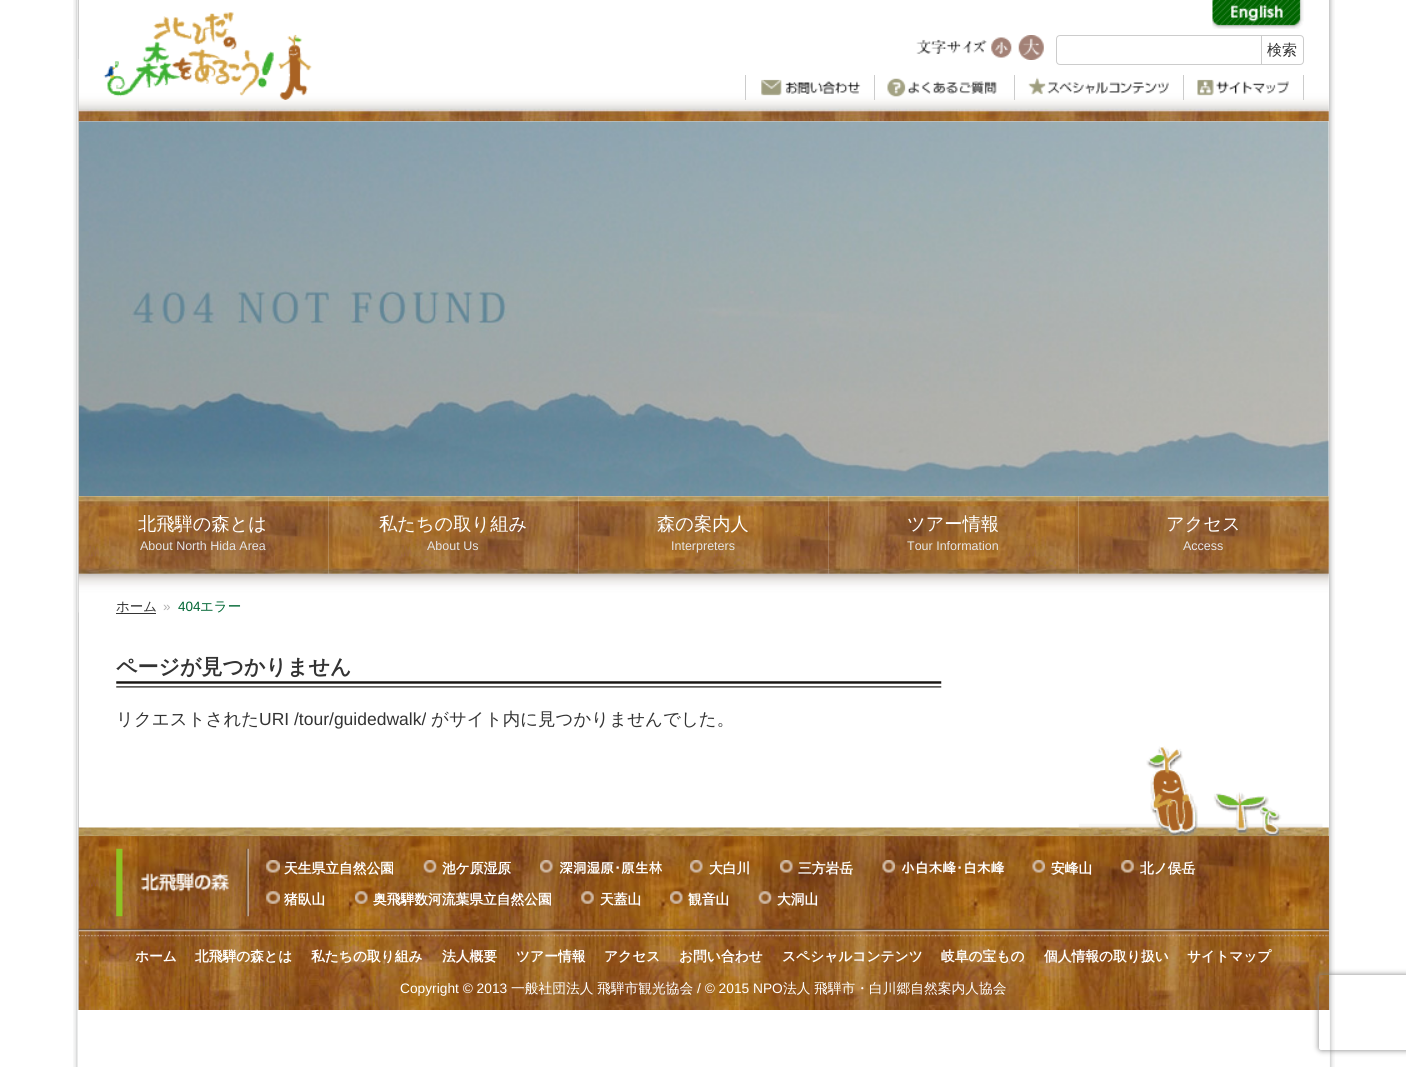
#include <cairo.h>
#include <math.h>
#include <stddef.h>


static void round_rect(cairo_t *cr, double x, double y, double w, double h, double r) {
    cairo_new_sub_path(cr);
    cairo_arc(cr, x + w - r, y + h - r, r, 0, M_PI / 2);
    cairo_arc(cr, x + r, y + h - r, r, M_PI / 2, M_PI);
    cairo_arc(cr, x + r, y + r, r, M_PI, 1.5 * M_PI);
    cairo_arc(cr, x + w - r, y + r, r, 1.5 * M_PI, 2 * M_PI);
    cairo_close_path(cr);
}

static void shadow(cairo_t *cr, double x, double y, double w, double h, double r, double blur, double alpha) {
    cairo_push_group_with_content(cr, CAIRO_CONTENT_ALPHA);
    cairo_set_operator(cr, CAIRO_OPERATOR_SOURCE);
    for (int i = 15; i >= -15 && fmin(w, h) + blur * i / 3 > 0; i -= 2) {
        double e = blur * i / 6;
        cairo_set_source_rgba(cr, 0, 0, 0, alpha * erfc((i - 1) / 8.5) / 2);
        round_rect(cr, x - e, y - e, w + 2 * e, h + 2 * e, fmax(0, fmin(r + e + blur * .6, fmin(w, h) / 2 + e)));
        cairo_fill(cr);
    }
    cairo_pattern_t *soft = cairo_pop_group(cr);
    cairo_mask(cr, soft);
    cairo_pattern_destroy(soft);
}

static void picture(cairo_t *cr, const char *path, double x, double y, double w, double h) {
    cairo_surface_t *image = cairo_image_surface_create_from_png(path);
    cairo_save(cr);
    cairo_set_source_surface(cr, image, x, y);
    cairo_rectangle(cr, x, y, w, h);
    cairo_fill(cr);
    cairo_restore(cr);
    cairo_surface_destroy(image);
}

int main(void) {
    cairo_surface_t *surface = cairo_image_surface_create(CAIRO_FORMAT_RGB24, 1406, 1067);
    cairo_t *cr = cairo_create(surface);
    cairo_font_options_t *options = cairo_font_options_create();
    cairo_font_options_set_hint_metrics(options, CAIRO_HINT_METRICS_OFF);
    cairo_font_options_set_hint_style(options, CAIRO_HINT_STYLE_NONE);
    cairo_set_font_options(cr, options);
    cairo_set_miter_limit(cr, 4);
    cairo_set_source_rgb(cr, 1, 1, 1);
    cairo_paint(cr);
    picture(cr, "img1.png", 73, 0, 1262, 1067);
    cairo_set_source_rgb(cr, 0.8, 0.8, 0.8);
    cairo_rectangle(cr, 1329, 0, 1, 1010);
    cairo_fill(cr);
    cairo_rectangle(cr, 78, 0, 1, 1010);
    cairo_fill(cr);
    picture(cr, "img2.png", 78, 59, 1251, 63);
    picture(cr, "img3.png", 103, 12, 209, 88);
    picture(cr, "img4.png", 1212, 0, 92, 29);
    picture(cr, "img5.png", 916, 39, 71, 15);
    picture(cr, "img6.png", 991, 37, 21, 21);
    picture(cr, "img7.png", 1018, 35, 26, 25);
    cairo_new_path(cr);
    cairo_move_to(cr, 1060, 35.5);
    cairo_line_to(cr, 1262.5, 35.5);
    cairo_line_to(cr, 1262.5, 64.5);
    cairo_line_to(cr, 1060, 64.5);
    cairo_curve_to(cr, 1058, 64.5, 1056.5, 63, 1056.5, 61);
    cairo_line_to(cr, 1056.5, 39);
    cairo_curve_to(cr, 1056.5, 37, 1058, 35.5, 1060, 35.5);
    cairo_close_path(cr);
    cairo_set_line_width(cr, 1);
    cairo_stroke(cr);
    cairo_set_source_rgb(cr, 1, 1, 1);
    cairo_new_path(cr);
    cairo_move_to(cr, 1261.5, 35.5);
    cairo_line_to(cr, 1300, 35.5);
    cairo_curve_to(cr, 1302, 35.5, 1303.5, 37, 1303.5, 39);
    cairo_line_to(cr, 1303.5, 61);
    cairo_curve_to(cr, 1303.5, 63, 1302, 64.5, 1300, 64.5);
    cairo_line_to(cr, 1261.5, 64.5);
    cairo_close_path(cr);
    cairo_fill_preserve(cr);
    cairo_set_source_rgb(cr, 0.8, 0.8, 0.8);
    cairo_stroke(cr);
    cairo_select_font_face(cr, "WenQuanYi Zen Hei Medium", CAIRO_FONT_SLANT_NORMAL, CAIRO_FONT_WEIGHT_NORMAL);
    cairo_set_font_size(cr, 15);
    cairo_set_source_rgb(cr, 0.2, 0.2, 0.2);
    cairo_move_to(cr, 1267, 55);
    cairo_show_text(cr, "検索");
    cairo_set_source_rgb(cr, 0.8, 0.8, 0.8);
    cairo_rectangle(cr, 745, 75, 1, 25);
    cairo_fill(cr);
    cairo_rectangle(cr, 874, 75, 1, 25);
    cairo_fill(cr);
    picture(cr, "img8.png", 761, 79, 100, 17);
    cairo_rectangle(cr, 1014, 75, 1, 25);
    cairo_fill(cr);
    picture(cr, "img9.png", 887, 78, 110, 19);
    cairo_rectangle(cr, 1183, 75, 1, 25);
    cairo_fill(cr);
    picture(cr, "img10.png", 1028, 77, 141, 18);
    cairo_rectangle(cr, 1303, 75, 1, 25);
    cairo_fill(cr);
    picture(cr, "img11.png", 1197, 79, 92, 17);
    picture(cr, "img12.png", 78, 121, 1251, 376);
    picture(cr, "img18.png", 78, 573, 1251, 40);
    picture(cr, "img13.png", 78, 496, 251, 78);
    cairo_set_font_size(cr, 18.25);
    cairo_set_source_rgb(cr, 1, 1, 1);
    cairo_move_to(cr, 138, 530);
    cairo_show_text(cr, "北飛騨の森とは");
    cairo_select_font_face(cr, "Liberation Sans", CAIRO_FONT_SLANT_NORMAL, CAIRO_FONT_WEIGHT_NORMAL);
    cairo_set_font_size(cr, 12.5);
    cairo_set_source_rgb(cr, 0.902, 0.898, 0.898);
    cairo_move_to(cr, 140, 550);
    cairo_show_text(cr, "About North Hida Area");
    picture(cr, "img14.png", 328, 496, 251, 78);
    cairo_select_font_face(cr, "WenQuanYi Zen Hei Medium", CAIRO_FONT_SLANT_NORMAL, CAIRO_FONT_WEIGHT_NORMAL);
    cairo_set_font_size(cr, 18.25);
    cairo_set_source_rgb(cr, 1, 1, 1);
    cairo_move_to(cr, 379, 530);
    cairo_show_text(cr, "私たちの取り組み");
    cairo_select_font_face(cr, "Liberation Sans", CAIRO_FONT_SLANT_NORMAL, CAIRO_FONT_WEIGHT_NORMAL);
    cairo_set_font_size(cr, 12.5);
    cairo_set_source_rgb(cr, 0.902, 0.898, 0.898);
    cairo_move_to(cr, 427, 550);
    cairo_show_text(cr, "About Us");
    picture(cr, "img15.png", 578, 496, 251, 78);
    cairo_select_font_face(cr, "WenQuanYi Zen Hei Medium", CAIRO_FONT_SLANT_NORMAL, CAIRO_FONT_WEIGHT_NORMAL);
    cairo_set_font_size(cr, 18.25);
    cairo_set_source_rgb(cr, 1, 1, 1);
    cairo_move_to(cr, 657, 530);
    cairo_show_text(cr, "森の案内人");
    cairo_select_font_face(cr, "Liberation Sans", CAIRO_FONT_SLANT_NORMAL, CAIRO_FONT_WEIGHT_NORMAL);
    cairo_set_font_size(cr, 12.5);
    cairo_set_source_rgb(cr, 0.902, 0.898, 0.898);
    cairo_move_to(cr, 671, 550);
    cairo_show_text(cr, "Interpreters");
    picture(cr, "img16.png", 828, 496, 251, 78);
    cairo_select_font_face(cr, "WenQuanYi Zen Hei Medium", CAIRO_FONT_SLANT_NORMAL, CAIRO_FONT_WEIGHT_NORMAL);
    cairo_set_font_size(cr, 18.25);
    cairo_set_source_rgb(cr, 1, 1, 1);
    cairo_move_to(cr, 907, 530);
    cairo_show_text(cr, "ツアー情報");
    cairo_select_font_face(cr, "Liberation Sans", CAIRO_FONT_SLANT_NORMAL, CAIRO_FONT_WEIGHT_NORMAL);
    cairo_set_font_size(cr, 12.5);
    cairo_set_source_rgb(cr, 0.902, 0.898, 0.898);
    cairo_move_to(cr, 907, 550);
    cairo_show_text(cr, "Tour Information");
    picture(cr, "img17.png", 1078, 496, 251, 78);
    cairo_select_font_face(cr, "WenQuanYi Zen Hei Medium", CAIRO_FONT_SLANT_NORMAL, CAIRO_FONT_WEIGHT_NORMAL);
    cairo_set_font_size(cr, 18.25);
    cairo_set_source_rgb(cr, 1, 1, 1);
    cairo_move_to(cr, 1166, 530);
    cairo_show_text(cr, "アクセス");
    cairo_select_font_face(cr, "Liberation Sans", CAIRO_FONT_SLANT_NORMAL, CAIRO_FONT_WEIGHT_NORMAL);
    cairo_set_font_size(cr, 12.5);
    cairo_set_source_rgb(cr, 0.902, 0.898, 0.898);
    cairo_move_to(cr, 1183, 550);
    cairo_show_text(cr, "Access");
    picture(cr, "img19.png", 78, 746, 1251, 91);
    cairo_select_font_face(cr, "WenQuanYi Zen Hei Medium", CAIRO_FONT_SLANT_NORMAL, CAIRO_FONT_WEIGHT_NORMAL);
    cairo_set_font_size(cr, 13.5);
    cairo_set_source_rgb(cr, 0.2, 0.2, 0.2);
    cairo_move_to(cr, 116, 611);
    cairo_show_text(cr, "ホーム");
    cairo_rectangle(cr, 116, 613, 40, 1);
    cairo_fill(cr);
    cairo_select_font_face(cr, "Liberation Sans", CAIRO_FONT_SLANT_NORMAL, CAIRO_FONT_WEIGHT_NORMAL);
    cairo_set_source_rgb(cr, 0.702, 0.698, 0.698);
    cairo_move_to(cr, 163, 611);
    cairo_show_text(cr, "»");
    cairo_set_source_rgb(cr, 0, 0.4, 0.2);
    cairo_move_to(cr, 178, 611);
    cairo_show_text(cr, "404");
    cairo_select_font_face(cr, "WenQuanYi Zen Hei Medium", CAIRO_FONT_SLANT_NORMAL, CAIRO_FONT_WEIGHT_NORMAL);
    cairo_move_to(cr, 200, 611);
    cairo_show_text(cr, "エラー");
    picture(cr, "img20.png", 116, 681, 826, 7);
    cairo_select_font_face(cr, "WenQuanYi Zen Hei", CAIRO_FONT_SLANT_NORMAL, CAIRO_FONT_WEIGHT_BOLD);
    cairo_set_font_size(cr, 21);
    cairo_set_source_rgb(cr, 0.2, 0.2, 0.2);
    cairo_move_to(cr, 116, 674);
    cairo_show_text(cr, "ページが見つかりません");
    cairo_select_font_face(cr, "WenQuanYi Zen Hei Medium", CAIRO_FONT_SLANT_NORMAL, CAIRO_FONT_WEIGHT_NORMAL);
    cairo_set_font_size(cr, 17.5);
    cairo_move_to(cr, 116, 725);
    cairo_show_text(cr, "リクエストされた");
    cairo_select_font_face(cr, "Liberation Sans", CAIRO_FONT_SLANT_NORMAL, CAIRO_FONT_WEIGHT_NORMAL);
    cairo_move_to(cr, 259, 725);
    cairo_show_text(cr, "URI /tour/guidedwalk/");
    cairo_select_font_face(cr, "WenQuanYi Zen Hei Medium", CAIRO_FONT_SLANT_NORMAL, CAIRO_FONT_WEIGHT_NORMAL);
    cairo_move_to(cr, 431, 725);
    cairo_show_text(cr, "がサイト内に見つかりませんでした。");
    cairo_set_source_rgb(cr, 0.627, 0.424, 0.169);
    cairo_rectangle(cr, 79, 836, 1250, 174);
    cairo_fill(cr);
    picture(cr, "img21.png", 78, 836, 1251, 174);
    picture(cr, "img22.png", 116, 848, 133, 69);
    picture(cr, "img23.png", 266, 860, 14, 13);
    cairo_select_font_face(cr, "WenQuanYi Zen Hei", CAIRO_FONT_SLANT_NORMAL, CAIRO_FONT_WEIGHT_BOLD);
    cairo_set_font_size(cr, 13.75);
    cairo_set_source_rgb(cr, 1, 1, 1);
    cairo_move_to(cr, 284, 873);
    cairo_show_text(cr, "天生県立自然公園");
    picture(cr, "img24.png", 423, 860, 14, 13);
    cairo_move_to(cr, 442, 873);
    cairo_show_text(cr, "池ケ原湿原");
    picture(cr, "img25.png", 540, 860, 13, 13);
    cairo_select_font_face(cr, "IPAPGothic", CAIRO_FONT_SLANT_NORMAL, CAIRO_FONT_WEIGHT_BOLD);
    cairo_move_to(cr, 559, 873);
    cairo_show_text(cr, "深洞湿原･原生林");
    picture(cr, "img26.png", 690, 860, 13, 13);
    cairo_select_font_face(cr, "WenQuanYi Zen Hei", CAIRO_FONT_SLANT_NORMAL, CAIRO_FONT_WEIGHT_BOLD);
    cairo_move_to(cr, 709, 873);
    cairo_show_text(cr, "大白川");
    picture(cr, "img27.png", 780, 860, 13, 13);
    cairo_move_to(cr, 798, 873);
    cairo_show_text(cr, "三方岩岳");
    picture(cr, "img28.png", 882, 860, 13, 13);
    cairo_select_font_face(cr, "IPAPGothic", CAIRO_FONT_SLANT_NORMAL, CAIRO_FONT_WEIGHT_BOLD);
    cairo_move_to(cr, 901, 873);
    cairo_show_text(cr, "小白木峰･白木峰");
    picture(cr, "img29.png", 1032, 860, 13, 13);
    cairo_select_font_face(cr, "WenQuanYi Zen Hei", CAIRO_FONT_SLANT_NORMAL, CAIRO_FONT_WEIGHT_BOLD);
    cairo_move_to(cr, 1051, 873);
    cairo_show_text(cr, "安峰山");
    picture(cr, "img30.png", 1121, 860, 13, 13);
    cairo_move_to(cr, 1140, 873);
    cairo_show_text(cr, "北ノ俣岳");
    picture(cr, "img31.png", 266, 891, 14, 13);
    cairo_move_to(cr, 284, 904);
    cairo_show_text(cr, "猪臥山");
    picture(cr, "img32.png", 355, 891, 13, 13);
    cairo_move_to(cr, 373, 904);
    cairo_show_text(cr, "奥飛騨数河流葉県立自然公園");
    picture(cr, "img33.png", 581, 891, 13, 13);
    cairo_move_to(cr, 600, 904);
    cairo_show_text(cr, "天蓋山");
    picture(cr, "img34.png", 670, 891, 13, 13);
    cairo_move_to(cr, 688, 904);
    cairo_show_text(cr, "観音山");
    picture(cr, "img35.png", 758, 891, 14, 13);
    cairo_move_to(cr, 777, 904);
    cairo_show_text(cr, "大洞山");
    picture(cr, "img36.png", 78, 928, 1251, 9);
    cairo_move_to(cr, 135, 961);
    cairo_show_text(cr, "ホーム");
    cairo_move_to(cr, 195, 961);
    cairo_show_text(cr, "北飛騨の森とは");
    cairo_move_to(cr, 311, 961);
    cairo_show_text(cr, "私たちの取り組み");
    cairo_move_to(cr, 442, 961);
    cairo_show_text(cr, "法人概要");
    cairo_move_to(cr, 516, 961);
    cairo_show_text(cr, "ツアー情報");
    cairo_move_to(cr, 604, 961);
    cairo_show_text(cr, "アクセス");
    cairo_move_to(cr, 679, 961);
    cairo_show_text(cr, "お問い合わせ");
    cairo_move_to(cr, 782, 961);
    cairo_show_text(cr, "スペシャルコンテンツ");
    cairo_move_to(cr, 941, 961);
    cairo_show_text(cr, "岐阜の宝もの");
    cairo_move_to(cr, 1044, 961);
    cairo_show_text(cr, "個人情報の取り扱い");
    cairo_move_to(cr, 1187, 961);
    cairo_show_text(cr, "サイトマップ");
    cairo_select_font_face(cr, "Liberation Sans", CAIRO_FONT_SLANT_NORMAL, CAIRO_FONT_WEIGHT_NORMAL);
    cairo_move_to(cr, 400, 993);
    cairo_show_text(cr, "Copyright © 2013");
    cairo_select_font_face(cr, "WenQuanYi Zen Hei Medium", CAIRO_FONT_SLANT_NORMAL, CAIRO_FONT_WEIGHT_NORMAL);
    cairo_move_to(cr, 511, 993);
    cairo_show_text(cr, "一般社団法人");
    cairo_move_to(cr, 597, 993);
    cairo_show_text(cr, "飛騨市観光協会");
    cairo_select_font_face(cr, "Liberation Sans", CAIRO_FONT_SLANT_NORMAL, CAIRO_FONT_WEIGHT_NORMAL);
    cairo_move_to(cr, 697, 993);
    cairo_show_text(cr, "/ © 2015 NPO");
    cairo_select_font_face(cr, "WenQuanYi Zen Hei Medium", CAIRO_FONT_SLANT_NORMAL, CAIRO_FONT_WEIGHT_NORMAL);
    cairo_move_to(cr, 783, 993);
    cairo_show_text(cr, "法人");
    cairo_move_to(cr, 814, 993);
    cairo_show_text(cr, "飛騨市・白川郷自然案内人協会");
    cairo_save(cr);
    cairo_set_fill_rule(cr, CAIRO_FILL_RULE_EVEN_ODD);
    cairo_new_path(cr);
    cairo_move_to(cr, 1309, 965);
    cairo_line_to(cr, 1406, 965);
    cairo_line_to(cr, 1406, 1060);
    cairo_line_to(cr, 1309, 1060);
    cairo_close_path(cr);
    cairo_move_to(cr, 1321.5, 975);
    cairo_line_to(cr, 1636.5, 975);
    cairo_curve_to(cr, 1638, 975, 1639, 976, 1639, 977.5);
    cairo_line_to(cr, 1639, 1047.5);
    cairo_curve_to(cr, 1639, 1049, 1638, 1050, 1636.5, 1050);
    cairo_line_to(cr, 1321.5, 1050);
    cairo_curve_to(cr, 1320, 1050, 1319, 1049, 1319, 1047.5);
    cairo_line_to(cr, 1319, 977.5);
    cairo_curve_to(cr, 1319, 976, 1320, 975, 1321.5, 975);
    cairo_close_path(cr);
    cairo_clip(cr);
    cairo_set_source_rgb(cr, 0.502, 0.502, 0.502);
    shadow(cr, 1319, 975, 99, 75, 2.5, 3, 1);
    cairo_restore(cr);
    cairo_surface_write_to_png(surface, "page.png");
    cairo_font_options_destroy(options);
    cairo_destroy(cr);
    cairo_surface_destroy(surface);
    return 0;
}
